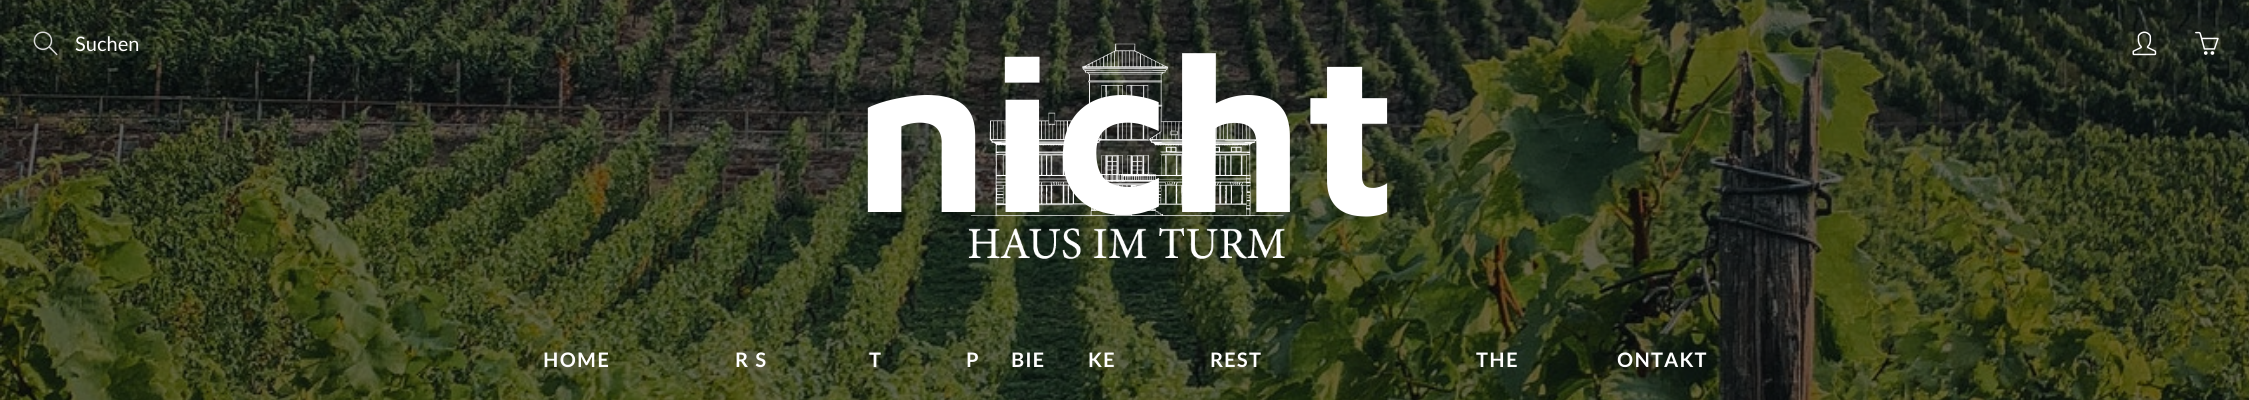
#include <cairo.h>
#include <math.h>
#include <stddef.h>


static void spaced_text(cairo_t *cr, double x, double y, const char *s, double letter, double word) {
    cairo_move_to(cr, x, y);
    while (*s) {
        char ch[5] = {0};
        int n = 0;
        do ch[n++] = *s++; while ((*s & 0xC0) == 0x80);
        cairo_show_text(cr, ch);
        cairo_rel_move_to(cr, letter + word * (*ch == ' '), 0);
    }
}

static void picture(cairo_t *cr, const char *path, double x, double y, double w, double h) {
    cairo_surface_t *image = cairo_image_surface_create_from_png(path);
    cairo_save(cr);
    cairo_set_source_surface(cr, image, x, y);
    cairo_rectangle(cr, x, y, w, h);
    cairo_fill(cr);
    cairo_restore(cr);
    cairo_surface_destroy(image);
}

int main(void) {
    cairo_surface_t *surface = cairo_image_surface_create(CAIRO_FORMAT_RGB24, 2249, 400);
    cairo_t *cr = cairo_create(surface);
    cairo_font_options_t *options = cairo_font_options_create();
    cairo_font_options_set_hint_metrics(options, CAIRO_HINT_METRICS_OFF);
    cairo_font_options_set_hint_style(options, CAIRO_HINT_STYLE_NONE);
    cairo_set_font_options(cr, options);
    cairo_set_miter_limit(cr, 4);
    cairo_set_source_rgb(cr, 1, 1, 1);
    cairo_paint(cr);
    picture(cr, "img5.png", 0, 0, 2249, 400);
    picture(cr, "img1.png", 33, 31, 25, 25);
    cairo_select_font_face(cr, "Lato", CAIRO_FONT_SLANT_NORMAL, CAIRO_FONT_WEIGHT_NORMAL);
    cairo_set_font_size(cr, 20);
    cairo_set_source_rgb(cr, 1, 1, 1);
    cairo_move_to(cr, 75, 51);
    cairo_show_text(cr, "Suchen");
    cairo_select_font_face(cr, "Maven Pro", CAIRO_FONT_SLANT_NORMAL, CAIRO_FONT_WEIGHT_BOLD);
    cairo_set_font_size(cr, 225);
    cairo_move_to(cr, 853, 212);
    cairo_show_text(cr, "nicht");
    picture(cr, "img2.png", 968, 43, 317, 216);
    picture(cr, "img3.png", 2132, 31, 25, 25);
    picture(cr, "img4.png", 2195, 31, 24, 24);
    cairo_select_font_face(cr, "Lato", CAIRO_FONT_SLANT_NORMAL, CAIRO_FONT_WEIGHT_BOLD);
    cairo_set_font_size(cr, 20);
    spaced_text(cr, 543, 367, "HOME", 1.25, 0);
    spaced_text(cr, 735, 367, "R S", 1.25, 0);
    spaced_text(cr, 869, 367, "T", 1.25, 0);
    spaced_text(cr, 966, 367, "P", 1.25, 0);
    spaced_text(cr, 1011, 367, "BIE", 1.25, 0);
    spaced_text(cr, 1088, 367, "KE", 1.25, 0);
    spaced_text(cr, 1210, 367, "REST", 1.25, 0);
    spaced_text(cr, 1476, 367, "THE", 1.25, 0);
    spaced_text(cr, 1617, 367, "ONTAKT", 1.25, 0);
    cairo_surface_write_to_png(surface, "page.png");
    cairo_font_options_destroy(options);
    cairo_destroy(cr);
    cairo_surface_destroy(surface);
    return 0;
}
